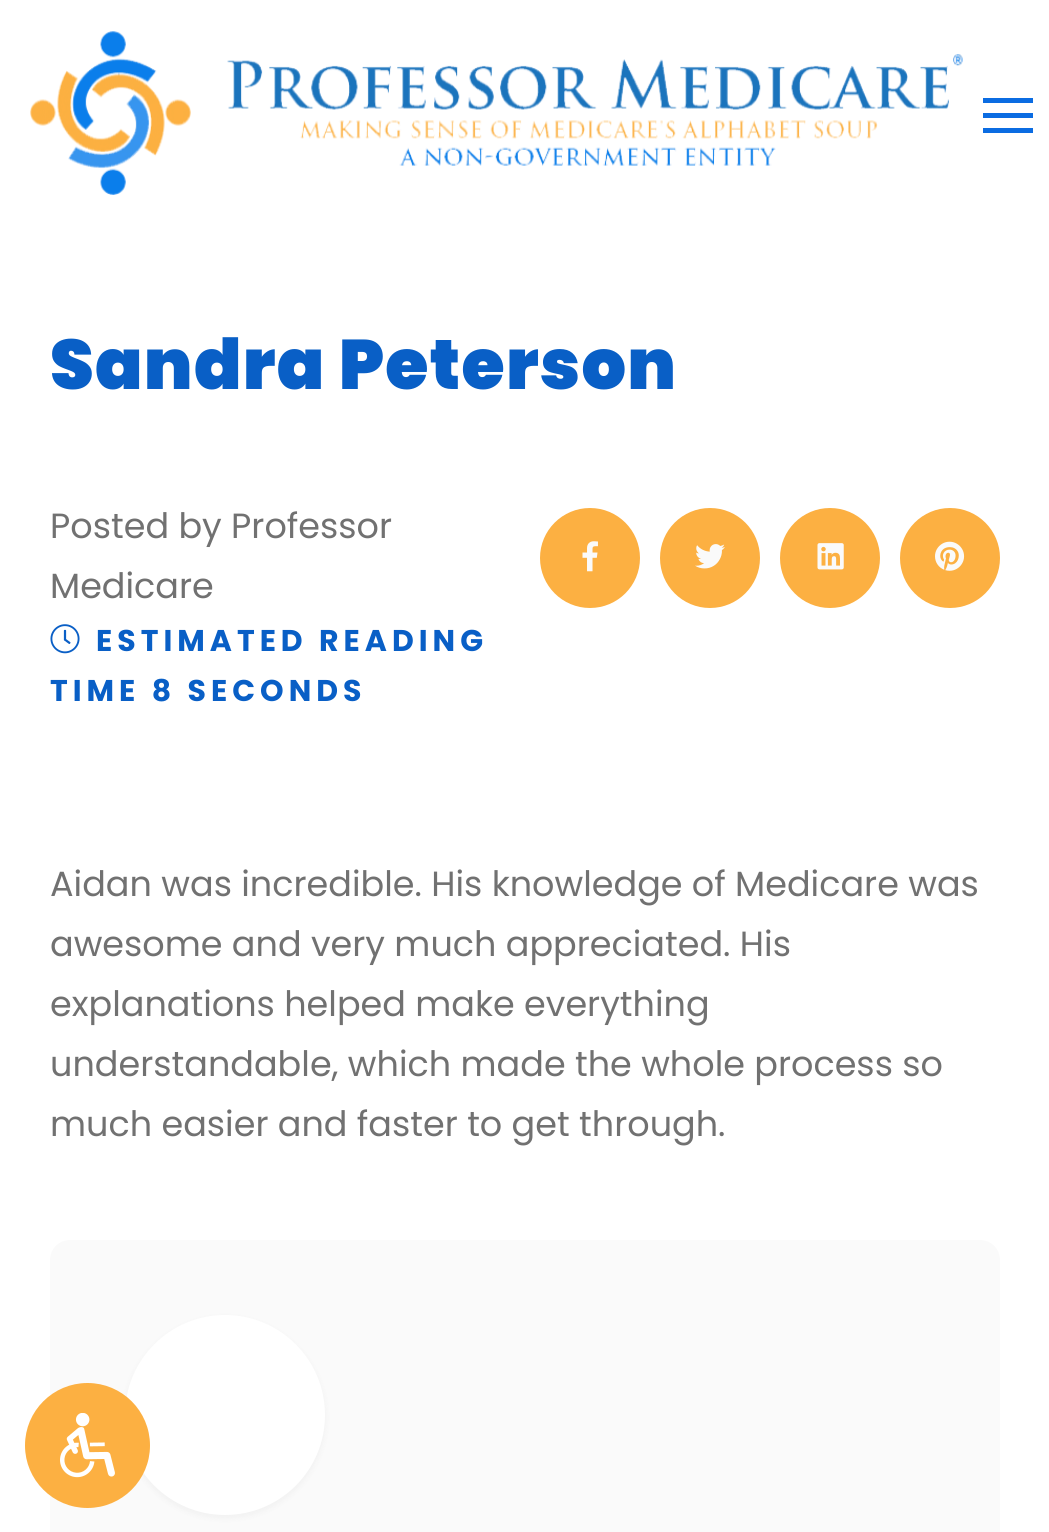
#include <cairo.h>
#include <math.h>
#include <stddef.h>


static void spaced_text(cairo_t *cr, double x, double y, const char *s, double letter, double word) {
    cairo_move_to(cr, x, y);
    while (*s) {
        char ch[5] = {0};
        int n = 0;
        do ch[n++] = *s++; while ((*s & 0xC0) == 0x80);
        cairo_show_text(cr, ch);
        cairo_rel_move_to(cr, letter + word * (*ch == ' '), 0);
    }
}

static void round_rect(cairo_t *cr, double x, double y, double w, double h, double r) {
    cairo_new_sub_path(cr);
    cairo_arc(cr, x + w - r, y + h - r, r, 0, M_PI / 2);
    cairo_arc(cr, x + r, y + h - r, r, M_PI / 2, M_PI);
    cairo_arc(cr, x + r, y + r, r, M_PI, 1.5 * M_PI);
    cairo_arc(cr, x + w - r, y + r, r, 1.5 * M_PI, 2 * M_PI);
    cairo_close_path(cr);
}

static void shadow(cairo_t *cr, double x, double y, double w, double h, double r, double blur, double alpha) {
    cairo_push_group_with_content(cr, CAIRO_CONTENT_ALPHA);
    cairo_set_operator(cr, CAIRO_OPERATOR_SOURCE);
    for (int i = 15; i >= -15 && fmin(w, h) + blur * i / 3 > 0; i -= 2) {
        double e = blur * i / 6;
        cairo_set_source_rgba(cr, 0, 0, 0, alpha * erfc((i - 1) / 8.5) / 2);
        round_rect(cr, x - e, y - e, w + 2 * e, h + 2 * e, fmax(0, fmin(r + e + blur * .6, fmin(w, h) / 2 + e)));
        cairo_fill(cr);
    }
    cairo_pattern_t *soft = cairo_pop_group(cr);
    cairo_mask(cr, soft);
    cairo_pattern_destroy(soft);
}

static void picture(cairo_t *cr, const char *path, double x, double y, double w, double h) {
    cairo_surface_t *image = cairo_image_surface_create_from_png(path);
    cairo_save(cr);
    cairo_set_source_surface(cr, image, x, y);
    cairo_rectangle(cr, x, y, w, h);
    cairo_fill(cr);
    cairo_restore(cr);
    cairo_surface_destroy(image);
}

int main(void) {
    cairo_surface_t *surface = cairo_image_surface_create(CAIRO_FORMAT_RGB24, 1049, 1532);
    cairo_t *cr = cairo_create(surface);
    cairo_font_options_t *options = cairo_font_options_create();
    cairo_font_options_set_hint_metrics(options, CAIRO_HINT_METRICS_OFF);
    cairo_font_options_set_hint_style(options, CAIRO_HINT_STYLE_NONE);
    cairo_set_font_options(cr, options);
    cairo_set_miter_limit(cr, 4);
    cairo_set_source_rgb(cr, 1, 1, 1);
    cairo_paint(cr);
    picture(cr, "img1.png", 30, 31, 933, 164);
    cairo_set_source_rgb(cr, 0.043, 0.424, 0.886);
    cairo_rectangle(cr, 983, 98, 50, 5);
    cairo_fill(cr);
    cairo_rectangle(cr, 983, 113, 50, 5);
    cairo_fill(cr);
    cairo_rectangle(cr, 983, 128, 50, 5);
    cairo_fill(cr);
    cairo_select_font_face(cr, "Poppins Black", CAIRO_FONT_SLANT_NORMAL, CAIRO_FONT_WEIGHT_NORMAL);
    cairo_set_font_size(cr, 70);
    cairo_set_source_rgb(cr, 0.039, 0.373, 0.776);
    spaced_text(cr, 50, 389, "Sandra Peterson", 1.25, 0);
    cairo_select_font_face(cr, "Poppins", CAIRO_FONT_SLANT_NORMAL, CAIRO_FONT_WEIGHT_NORMAL);
    cairo_set_font_size(cr, 35);
    cairo_set_source_rgb(cr, 0.443, 0.443, 0.443);
    cairo_move_to(cr, 50, 538);
    cairo_show_text(cr, "Posted by Professor");
    cairo_move_to(cr, 50, 598);
    cairo_show_text(cr, "Medicare");
    picture(cr, "img2.png", 50, 624, 30, 30);
    cairo_select_font_face(cr, "Poppins", CAIRO_FONT_SLANT_NORMAL, CAIRO_FONT_WEIGHT_BOLD);
    cairo_set_font_size(cr, 30);
    cairo_set_source_rgb(cr, 0.039, 0.373, 0.776);
    spaced_text(cr, 96, 651, "ESTIMATED READING", 5, 0);
    spaced_text(cr, 50, 701, "TIME 8 SECONDS", 5, 0);
    cairo_set_source_rgb(cr, 0.988, 0.69, 0.259);
    cairo_new_path(cr);
    cairo_arc(cr, 590, 558, 50, 0, 2 * M_PI);
    cairo_fill(cr);
    picture(cr, "img3.png", 582, 541, 16, 31);
    cairo_arc(cr, 710, 558, 50, 0, 2 * M_PI);
    cairo_fill(cr);
    picture(cr, "img4.png", 695, 544, 30, 25);
    cairo_arc(cr, 830, 558, 50, 0, 2 * M_PI);
    cairo_fill(cr);
    picture(cr, "img5.png", 817, 543, 27, 27);
    cairo_arc(cr, 950, 558, 50, 0, 2 * M_PI);
    cairo_fill(cr);
    picture(cr, "img6.png", 935, 541, 30, 30);
    cairo_select_font_face(cr, "Poppins", CAIRO_FONT_SLANT_NORMAL, CAIRO_FONT_WEIGHT_NORMAL);
    cairo_set_font_size(cr, 35);
    cairo_set_source_rgb(cr, 0.443, 0.443, 0.443);
    cairo_move_to(cr, 50, 896);
    cairo_show_text(cr, "Aidan was incredible. His knowledge of Medicare was");
    cairo_move_to(cr, 50, 956);
    cairo_show_text(cr, "awesome and very much appreciated. His");
    cairo_move_to(cr, 50, 1016);
    cairo_show_text(cr, "explanations helped make everything");
    cairo_move_to(cr, 50, 1076);
    cairo_show_text(cr, "understandable, which made the whole process so");
    cairo_move_to(cr, 50, 1136);
    cairo_show_text(cr, "much easier and faster to get through.");
    cairo_set_source_rgb(cr, 0.98, 0.98, 0.98);
    round_rect(cr, 50, 1240, 950, 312, 20);
    cairo_fill(cr);
    cairo_set_source_rgb(cr, 0, 0, 0);
    shadow(cr, 125, 1318, 200, 200, 100, 4, 0.04);
    cairo_set_source_rgb(cr, 1, 1, 1);
    cairo_arc(cr, 225, 1415, 100, 0, 2 * M_PI);
    cairo_fill(cr);
    cairo_set_source_rgb(cr, 0.988, 0.69, 0.259);
    cairo_arc(cr, 87.5, 1445.5, 60, 0, 2 * M_PI);
    cairo_fill_preserve(cr);
    cairo_set_line_width(cr, 5);
    cairo_stroke(cr);
    picture(cr, "img7.png", 60, 1413, 55, 65);
    cairo_surface_write_to_png(surface, "page.png");
    cairo_font_options_destroy(options);
    cairo_destroy(cr);
    cairo_surface_destroy(surface);
    return 0;
}
